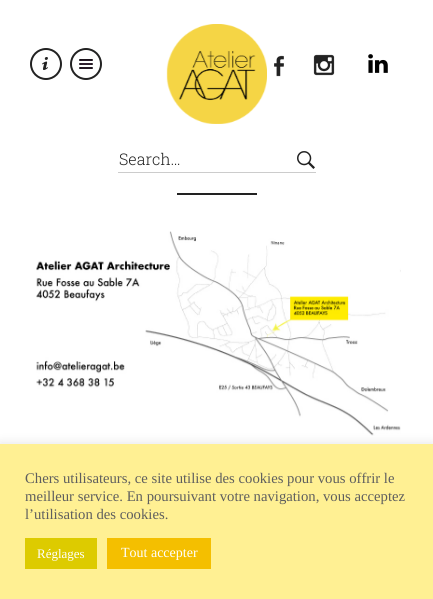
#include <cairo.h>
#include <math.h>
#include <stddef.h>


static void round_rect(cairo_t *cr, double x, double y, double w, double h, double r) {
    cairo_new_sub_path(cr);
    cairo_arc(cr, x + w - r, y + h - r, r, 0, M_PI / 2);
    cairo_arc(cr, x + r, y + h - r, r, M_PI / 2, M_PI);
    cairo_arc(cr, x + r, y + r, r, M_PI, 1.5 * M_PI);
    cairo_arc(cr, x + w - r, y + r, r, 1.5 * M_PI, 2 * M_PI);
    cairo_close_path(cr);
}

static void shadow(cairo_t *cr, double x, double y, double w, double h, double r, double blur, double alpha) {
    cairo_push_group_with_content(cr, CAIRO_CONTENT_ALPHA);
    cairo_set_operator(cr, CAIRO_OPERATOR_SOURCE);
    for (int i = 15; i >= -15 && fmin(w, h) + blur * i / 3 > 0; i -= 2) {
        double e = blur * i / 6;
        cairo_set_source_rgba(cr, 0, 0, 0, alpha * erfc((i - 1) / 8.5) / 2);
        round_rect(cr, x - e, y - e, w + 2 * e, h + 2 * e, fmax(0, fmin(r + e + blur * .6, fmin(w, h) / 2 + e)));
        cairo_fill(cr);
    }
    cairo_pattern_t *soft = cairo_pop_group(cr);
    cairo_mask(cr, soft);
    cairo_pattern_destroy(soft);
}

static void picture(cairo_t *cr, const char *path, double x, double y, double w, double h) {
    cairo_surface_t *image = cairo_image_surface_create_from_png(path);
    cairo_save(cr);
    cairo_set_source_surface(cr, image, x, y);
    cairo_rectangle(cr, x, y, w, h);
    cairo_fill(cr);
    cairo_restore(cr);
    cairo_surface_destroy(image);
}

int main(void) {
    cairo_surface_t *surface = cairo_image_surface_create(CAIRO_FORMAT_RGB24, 433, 599);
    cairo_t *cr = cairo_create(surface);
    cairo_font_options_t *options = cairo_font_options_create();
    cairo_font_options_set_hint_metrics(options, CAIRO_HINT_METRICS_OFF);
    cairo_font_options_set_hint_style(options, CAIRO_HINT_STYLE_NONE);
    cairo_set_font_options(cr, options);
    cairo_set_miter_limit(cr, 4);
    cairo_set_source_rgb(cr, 1, 1, 1);
    cairo_paint(cr);
    picture(cr, "img1.png", 42, 57, 6, 13);
    cairo_arc(cr, 46, 64, 15, 0, 2 * M_PI);
    cairo_set_source_rgb(cr, 0.133, 0.133, 0.133);
    cairo_stroke(cr);
    picture(cr, "img2.png", 79, 59, 14, 10);
    cairo_arc(cr, 86, 64, 15, 0, 2 * M_PI);
    cairo_stroke(cr);
    picture(cr, "img3.png", 166, 24, 101, 100);
    picture(cr, "img4.png", 274, 55, 10, 22);
    picture(cr, "img5.png", 313, 54, 22, 22);
    picture(cr, "img6.png", 368, 54, 20, 19);
    cairo_set_source_rgb(cr, 0.8, 0.8, 0.8);
    cairo_rectangle(cr, 118, 172, 198, 1);
    cairo_fill(cr);
    cairo_select_font_face(cr, "Roboto Slab Light", CAIRO_FONT_SLANT_NORMAL, CAIRO_FONT_WEIGHT_NORMAL);
    cairo_set_font_size(cr, 16);
    cairo_set_source_rgb(cr, 0.133, 0.133, 0.133);
    cairo_move_to(cr, 119, 165);
    cairo_show_text(cr, "Search…");
    picture(cr, "img7.png", 297, 151, 18, 18);
    cairo_rectangle(cr, 177, 193, 80, 2);
    cairo_fill(cr);
    picture(cr, "img8.png", 36, 231, 365, 205);
    cairo_set_source_rgb(cr, 0.675, 0.671, 0.671);
    shadow(cr, 0, 443, 433, 155, 0, 5, 0.3);
    cairo_set_source_rgb(cr, 1, 0.941, 0.576);
    cairo_rectangle(cr, 0, 444, 433, 155);
    cairo_fill(cr);
    cairo_select_font_face(cr, "Liberation Serif", CAIRO_FONT_SLANT_NORMAL, CAIRO_FONT_WEIGHT_NORMAL);
    cairo_set_font_size(cr, 14.7);
    cairo_set_source_rgb(cr, 0.369, 0.369, 0.369);
    cairo_move_to(cr, 25, 483);
    cairo_show_text(cr, "Chers utilisateurs, ce site utilise des cookies pour vous offrir le");
    cairo_move_to(cr, 25, 501);
    cairo_show_text(cr, "meilleur service. En poursuivant votre navigation, vous acceptez");
    cairo_move_to(cr, 25, 519);
    cairo_show_text(cr, "l’utilisation des cookies.");
    cairo_set_source_rgb(cr, 0.867, 0.796, 0);
    cairo_rectangle(cr, 25, 538, 72, 31);
    cairo_fill(cr);
    cairo_set_font_size(cr, 13);
    cairo_set_source_rgb(cr, 1, 1, 1);
    cairo_move_to(cr, 37, 558);
    cairo_show_text(cr, "Réglages");
    cairo_set_source_rgb(cr, 0.957, 0.749, 0);
    cairo_rectangle(cr, 107, 538, 104, 31);
    cairo_fill(cr);
    cairo_set_font_size(cr, 14);
    cairo_set_source_rgb(cr, 1, 1, 1);
    cairo_move_to(cr, 121, 557);
    cairo_show_text(cr, "Tout accepter");
    cairo_surface_write_to_png(surface, "page.png");
    cairo_font_options_destroy(options);
    cairo_destroy(cr);
    cairo_surface_destroy(surface);
    return 0;
}
